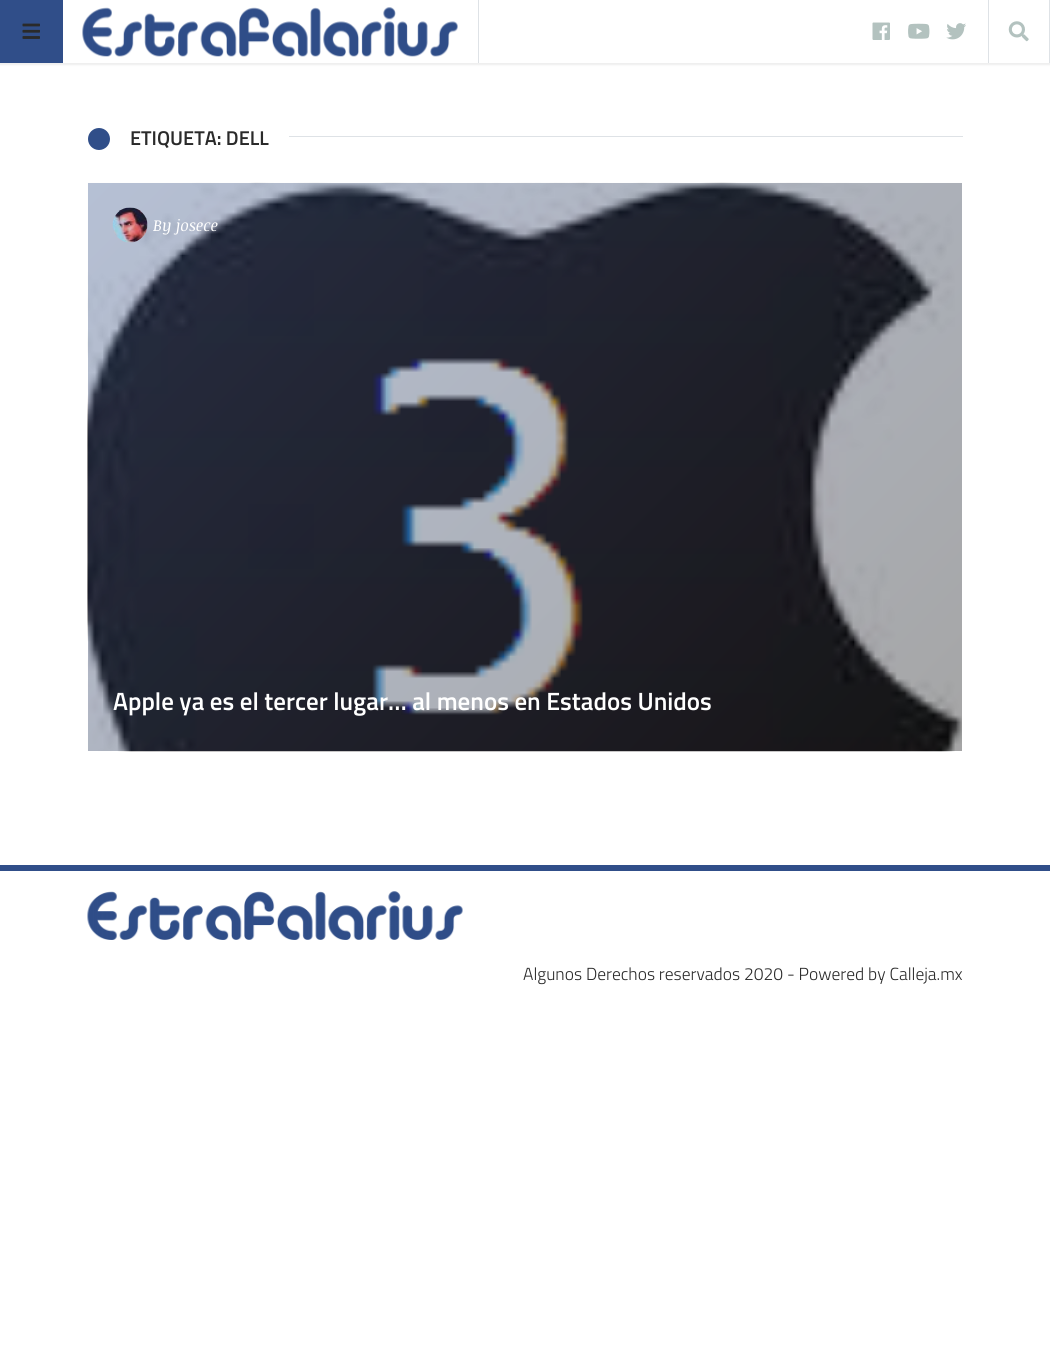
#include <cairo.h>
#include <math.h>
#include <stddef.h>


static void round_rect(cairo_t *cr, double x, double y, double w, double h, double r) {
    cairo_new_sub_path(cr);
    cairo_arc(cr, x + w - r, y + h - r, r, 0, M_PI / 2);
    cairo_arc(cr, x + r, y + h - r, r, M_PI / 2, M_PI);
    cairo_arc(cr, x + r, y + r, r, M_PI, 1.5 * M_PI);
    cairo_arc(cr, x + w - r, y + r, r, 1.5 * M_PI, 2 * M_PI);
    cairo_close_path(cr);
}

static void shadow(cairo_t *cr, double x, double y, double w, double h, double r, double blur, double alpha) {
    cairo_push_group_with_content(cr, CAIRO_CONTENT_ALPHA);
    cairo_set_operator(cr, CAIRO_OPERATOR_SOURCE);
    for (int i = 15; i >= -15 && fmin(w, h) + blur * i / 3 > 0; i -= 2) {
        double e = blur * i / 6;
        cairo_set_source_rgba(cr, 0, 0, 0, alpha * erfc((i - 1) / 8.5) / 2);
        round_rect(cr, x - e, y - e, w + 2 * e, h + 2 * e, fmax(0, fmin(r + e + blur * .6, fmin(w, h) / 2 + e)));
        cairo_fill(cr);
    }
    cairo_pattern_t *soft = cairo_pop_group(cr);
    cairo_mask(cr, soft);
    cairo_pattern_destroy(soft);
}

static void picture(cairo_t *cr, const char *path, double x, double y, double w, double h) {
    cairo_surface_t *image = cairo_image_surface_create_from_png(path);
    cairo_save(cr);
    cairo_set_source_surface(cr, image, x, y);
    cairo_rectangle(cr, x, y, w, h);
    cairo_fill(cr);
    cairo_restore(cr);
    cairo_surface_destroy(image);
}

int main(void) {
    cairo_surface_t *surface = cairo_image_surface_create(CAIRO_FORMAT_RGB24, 1050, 1350);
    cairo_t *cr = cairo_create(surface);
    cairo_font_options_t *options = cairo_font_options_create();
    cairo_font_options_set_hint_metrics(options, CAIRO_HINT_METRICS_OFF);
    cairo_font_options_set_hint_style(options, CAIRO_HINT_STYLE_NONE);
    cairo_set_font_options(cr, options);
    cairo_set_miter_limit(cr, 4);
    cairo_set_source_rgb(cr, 1, 1, 1);
    cairo_paint(cr);
    cairo_set_source_rgb(cr, 0, 0, 0);
    shadow(cr, -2, -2, 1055, 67, 0, 1, 0.07);
    cairo_set_source_rgb(cr, 1, 1, 1);
    cairo_rectangle(cr, 63, 0, 986, 63);
    cairo_fill(cr);
    cairo_set_source_rgb(cr, 0.188, 0.306, 0.537);
    cairo_rectangle(cr, 0, 0, 63, 63);
    cairo_fill(cr);
    picture(cr, "img1.png", 22, 23, 18, 16);
    cairo_set_source_rgb(cr, 0.871, 0.886, 0.902);
    cairo_rectangle(cr, 478, 0, 1, 63);
    cairo_fill(cr);
    picture(cr, "img2.png", 82, 7, 376, 50);
    picture(cr, "img3.png", 872, 22, 18, 18);
    picture(cr, "img4.png", 908, 23, 22, 16);
    picture(cr, "img5.png", 946, 23, 20, 17);
    cairo_rectangle(cr, 1049, 0, 1, 63);
    cairo_fill(cr);
    cairo_rectangle(cr, 988, 0, 1, 63);
    cairo_fill(cr);
    picture(cr, "img6.png", 1008, 21, 21, 21);
    cairo_set_source_rgb(cr, 0.188, 0.306, 0.537);
    cairo_arc(cr, 99, 139, 11, 0, 2 * M_PI);
    cairo_fill(cr);
    cairo_select_font_face(cr, "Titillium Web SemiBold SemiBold", CAIRO_FONT_SLANT_NORMAL, CAIRO_FONT_WEIGHT_NORMAL);
    cairo_set_font_size(cr, 20);
    cairo_set_source_rgb(cr, 0.165, 0.165, 0.165);
    cairo_move_to(cr, 130, 145);
    cairo_show_text(cr, "ETIQUETA: DELL");
    cairo_set_source_rgb(cr, 0.871, 0.886, 0.902);
    cairo_rectangle(cr, 289, 136, 674, 1);
    cairo_fill(cr);
    picture(cr, "img7.png", 87, 182, 875, 570);
    picture(cr, "img8.png", 112, 207, 36, 36);
    cairo_select_font_face(cr, "Noticia Text", CAIRO_FONT_SLANT_ITALIC, CAIRO_FONT_WEIGHT_NORMAL);
    cairo_set_font_size(cr, 16);
    cairo_set_source_rgb(cr, 1, 1, 1);
    cairo_move_to(cr, 153, 231);
    cairo_show_text(cr, "By josece");
    cairo_select_font_face(cr, "Titillium Web SemiBold SemiBold", CAIRO_FONT_SLANT_NORMAL, CAIRO_FONT_WEIGHT_NORMAL);
    cairo_set_font_size(cr, 25);
    cairo_move_to(cr, 113, 710);
    cairo_show_text(cr, "Apple ya es el tercer lugar… al menos en Estados Unidos");
    cairo_set_source_rgb(cr, 0.188, 0.306, 0.537);
    cairo_rectangle(cr, 0, 865, 1050, 6);
    cairo_fill(cr);
    picture(cr, "img9.png", 87, 891, 376, 49);
    cairo_select_font_face(cr, "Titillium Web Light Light", CAIRO_FONT_SLANT_NORMAL, CAIRO_FONT_WEIGHT_NORMAL);
    cairo_set_font_size(cr, 17.5);
    cairo_set_source_rgb(cr, 0.165, 0.165, 0.165);
    cairo_move_to(cr, 523, 980);
    cairo_show_text(cr, "Algunos Derechos reservados 2020 - Powered by Calleja.mx");
    cairo_surface_write_to_png(surface, "page.png");
    cairo_font_options_destroy(options);
    cairo_destroy(cr);
    cairo_surface_destroy(surface);
    return 0;
}
